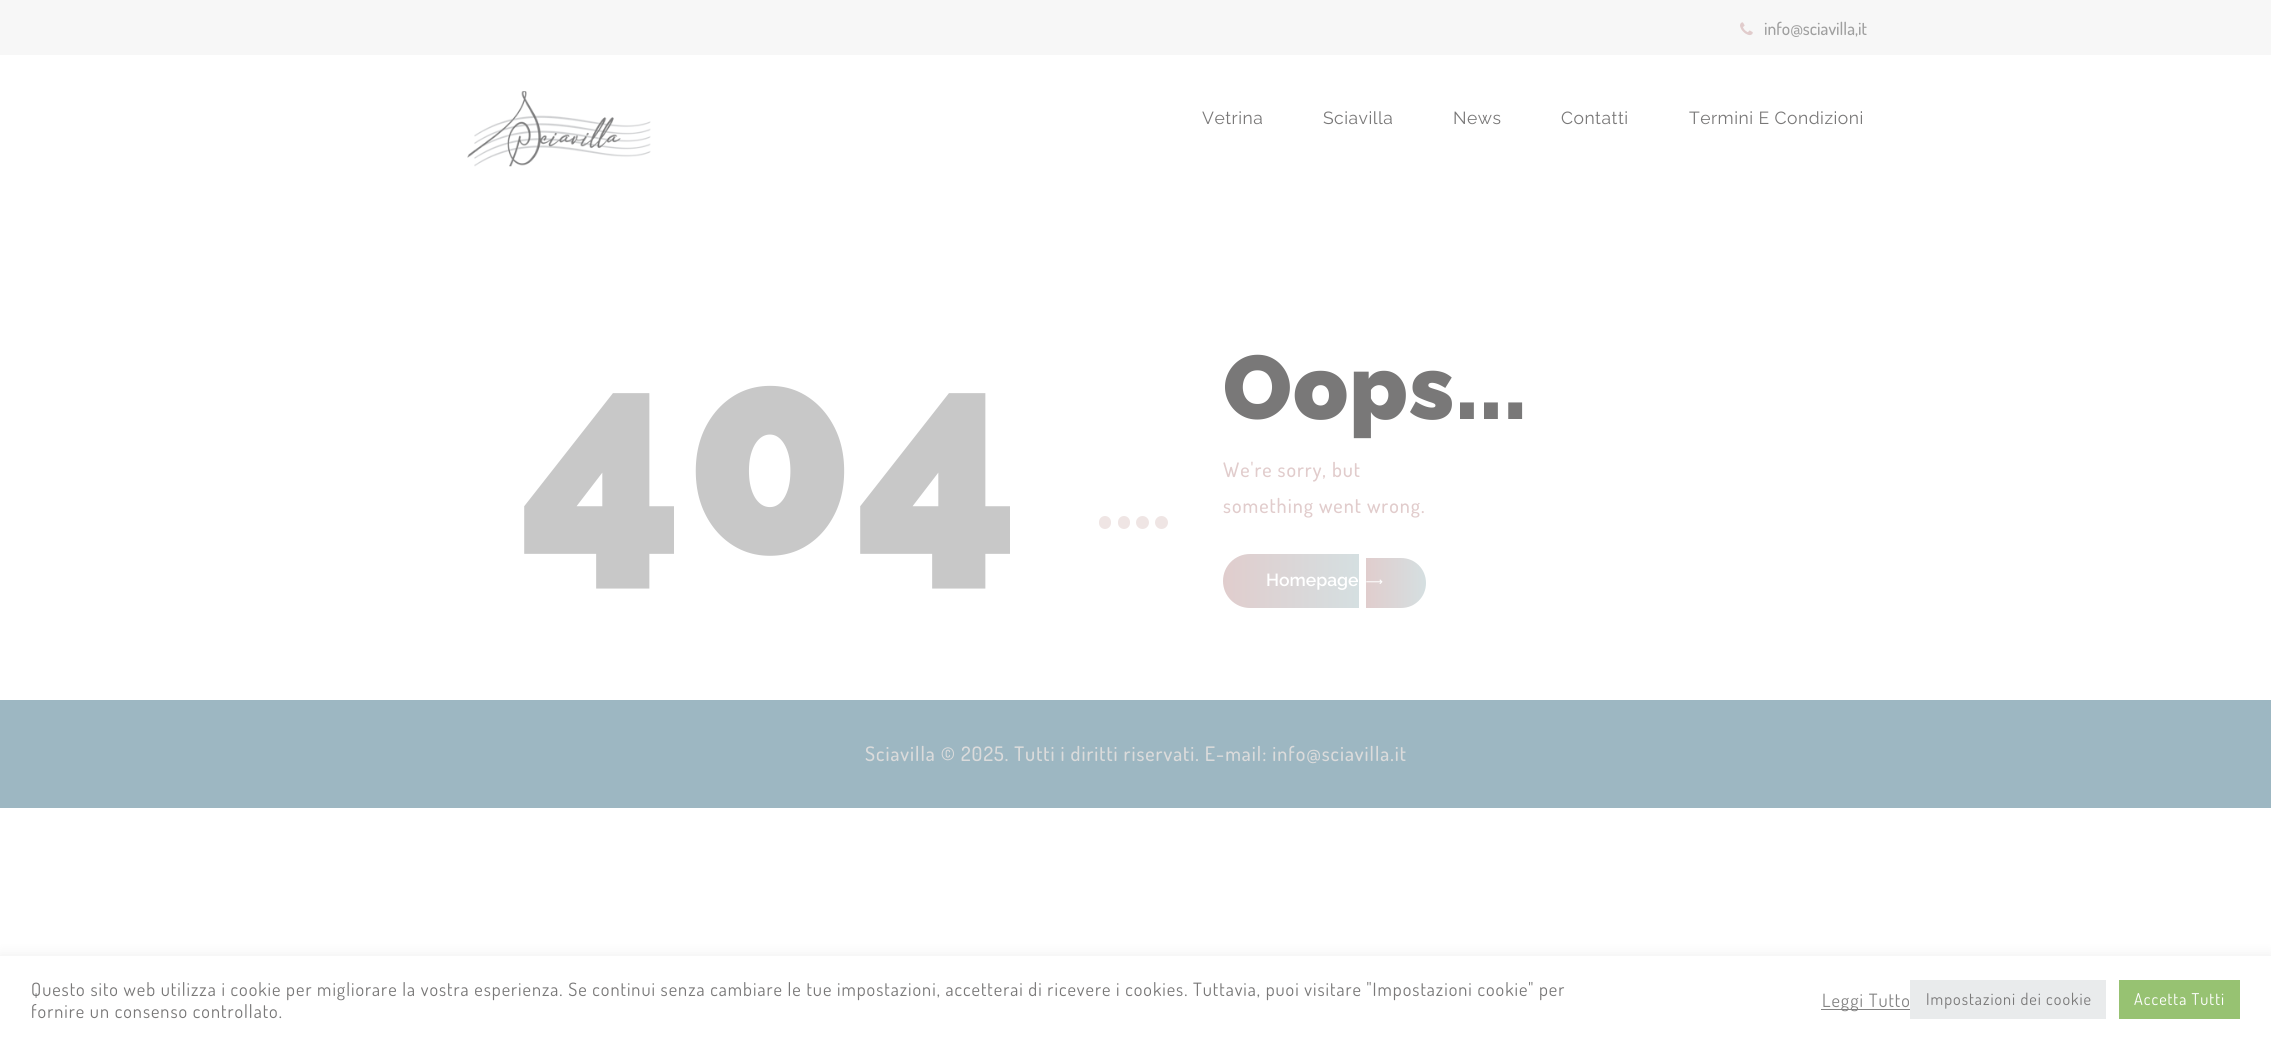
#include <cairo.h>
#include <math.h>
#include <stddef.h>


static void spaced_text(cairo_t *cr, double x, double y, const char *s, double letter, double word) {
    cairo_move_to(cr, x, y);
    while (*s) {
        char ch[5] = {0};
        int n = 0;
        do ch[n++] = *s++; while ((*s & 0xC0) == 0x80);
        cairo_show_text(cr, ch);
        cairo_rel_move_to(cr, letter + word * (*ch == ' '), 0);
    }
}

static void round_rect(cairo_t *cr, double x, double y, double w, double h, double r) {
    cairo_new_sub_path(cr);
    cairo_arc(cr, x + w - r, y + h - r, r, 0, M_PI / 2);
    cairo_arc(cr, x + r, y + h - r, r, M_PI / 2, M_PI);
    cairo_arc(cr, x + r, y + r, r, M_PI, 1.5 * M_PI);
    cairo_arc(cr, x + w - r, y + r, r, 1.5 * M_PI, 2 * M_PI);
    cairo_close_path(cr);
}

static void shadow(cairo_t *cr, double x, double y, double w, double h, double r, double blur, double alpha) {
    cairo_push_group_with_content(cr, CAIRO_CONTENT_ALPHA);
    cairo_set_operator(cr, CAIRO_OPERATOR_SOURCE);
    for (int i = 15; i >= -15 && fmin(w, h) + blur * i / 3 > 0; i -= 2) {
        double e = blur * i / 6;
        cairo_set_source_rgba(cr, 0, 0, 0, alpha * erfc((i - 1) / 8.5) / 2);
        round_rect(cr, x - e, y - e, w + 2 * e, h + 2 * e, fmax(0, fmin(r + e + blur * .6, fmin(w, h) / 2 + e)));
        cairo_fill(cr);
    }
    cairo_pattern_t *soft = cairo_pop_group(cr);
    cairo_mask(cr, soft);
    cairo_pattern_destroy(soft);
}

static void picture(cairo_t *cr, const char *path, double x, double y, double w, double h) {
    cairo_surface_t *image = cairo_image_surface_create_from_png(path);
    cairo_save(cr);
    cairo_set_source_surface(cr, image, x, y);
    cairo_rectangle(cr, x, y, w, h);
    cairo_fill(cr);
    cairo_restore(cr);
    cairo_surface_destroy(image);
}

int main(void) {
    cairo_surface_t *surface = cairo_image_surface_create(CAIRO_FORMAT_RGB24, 2271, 1042);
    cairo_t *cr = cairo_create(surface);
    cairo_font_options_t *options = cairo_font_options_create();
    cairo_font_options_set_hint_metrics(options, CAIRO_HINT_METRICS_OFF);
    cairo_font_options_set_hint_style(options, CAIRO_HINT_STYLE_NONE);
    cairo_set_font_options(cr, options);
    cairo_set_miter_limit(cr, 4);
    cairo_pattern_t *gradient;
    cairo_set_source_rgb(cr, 1, 1, 1);
    cairo_paint(cr);
    cairo_set_source_rgb(cr, 0.965, 0.965, 0.965);
    cairo_rectangle(cr, 0, 0, 2271, 55);
    cairo_fill(cr);
    picture(cr, "img1.png", 1740, 22, 13, 14);
    cairo_select_font_face(cr, "Dosis Medium", CAIRO_FONT_SLANT_NORMAL, CAIRO_FONT_WEIGHT_NORMAL);
    cairo_set_font_size(cr, 17.5);
    cairo_set_source_rgb(cr, 0.624, 0.624, 0.624);
    cairo_move_to(cr, 1764, 35);
    cairo_show_text(cr, "info@sciavilla,it");
    picture(cr, "img2.png", 467, 91, 184, 76);
    cairo_select_font_face(cr, "Raleway", CAIRO_FONT_SLANT_NORMAL, CAIRO_FONT_WEIGHT_NORMAL);
    cairo_set_source_rgb(cr, 0.475, 0.471, 0.471);
    spaced_text(cr, 1202, 124, "Vetrina", 0.5, 0);
    spaced_text(cr, 1323, 124, "Sciavilla", 0.5, 0);
    spaced_text(cr, 1453, 124, "News", 0.5, 0);
    spaced_text(cr, 1561, 124, "Contatti", 0.5, 0);
    spaced_text(cr, 1689, 124, "Termini E Condizioni", 0.5, 0);
    cairo_select_font_face(cr, "Raleway Black", CAIRO_FONT_SLANT_NORMAL, CAIRO_FONT_WEIGHT_NORMAL);
    cairo_set_font_size(cr, 280);
    cairo_set_source_rgb(cr, 0.784, 0.784, 0.784);
    cairo_move_to(cr, 520, 553);
    cairo_show_text(cr, "404");
    cairo_set_font_size(cr, 90);
    cairo_set_source_rgb(cr, 0.475, 0.471, 0.471);
    spaced_text(cr, 1223, 419, "Oops...", 1.25, 0);
    cairo_select_font_face(cr, "Dosis Medium", CAIRO_FONT_SLANT_NORMAL, CAIRO_FONT_WEIGHT_NORMAL);
    cairo_set_font_size(cr, 20);
    cairo_set_source_rgb(cr, 0.882, 0.8, 0.8);
    spaced_text(cr, 1223, 477, "We're sorry, but", 1, 0);
    spaced_text(cr, 1223, 513, "something went wrong.", 1, 0);
    gradient = cairo_pattern_create_linear(1073, 581, 1359, 581);
    cairo_pattern_add_color_stop_rgba(gradient, 0, 0.835, 0.875, 0.882, 1);
    cairo_pattern_add_color_stop_rgba(gradient, 0.5, 0.882, 0.8, 0.8, 1);
    cairo_pattern_add_color_stop_rgba(gradient, 1, 0.835, 0.875, 0.882, 1);
    cairo_set_source(cr, gradient);
    cairo_pattern_destroy(gradient);
    cairo_new_path(cr);
    cairo_move_to(cr, 1250, 554);
    cairo_line_to(cr, 1359, 554);
    cairo_line_to(cr, 1359, 608);
    cairo_line_to(cr, 1250, 608);
    cairo_curve_to(cr, 1235, 608, 1223, 596, 1223, 581);
    cairo_curve_to(cr, 1223, 566, 1235, 554, 1250, 554);
    cairo_close_path(cr);
    cairo_fill(cr);
    cairo_select_font_face(cr, "Raleway SemiBold", CAIRO_FONT_SLANT_NORMAL, CAIRO_FONT_WEIGHT_NORMAL);
    cairo_set_font_size(cr, 17.5);
    cairo_set_source_rgb(cr, 1, 1, 1);
    cairo_move_to(cr, 1266, 586);
    cairo_show_text(cr, "Homepage");
    gradient = cairo_pattern_create_linear(1300, 583, 1426, 583);
    cairo_pattern_add_color_stop_rgba(gradient, 0, 0.835, 0.875, 0.882, 1);
    cairo_pattern_add_color_stop_rgba(gradient, 0.5, 0.882, 0.8, 0.8, 1);
    cairo_pattern_add_color_stop_rgba(gradient, 1, 0.835, 0.875, 0.882, 1);
    cairo_set_source(cr, gradient);
    cairo_pattern_destroy(gradient);
    cairo_new_path(cr);
    cairo_move_to(cr, 1366, 558);
    cairo_line_to(cr, 1401, 558);
    cairo_curve_to(cr, 1415, 558, 1426, 569, 1426, 583);
    cairo_curve_to(cr, 1426, 597, 1415, 608, 1401, 608);
    cairo_line_to(cr, 1366, 608);
    cairo_close_path(cr);
    cairo_fill(cr);
    picture(cr, "img3.png", 1366, 579, 17, 5);
    cairo_set_source_rgb(cr, 0.616, 0.718, 0.761);
    cairo_rectangle(cr, 0, 700, 2271, 108);
    cairo_fill(cr);
    cairo_select_font_face(cr, "Dosis Medium", CAIRO_FONT_SLANT_NORMAL, CAIRO_FONT_WEIGHT_NORMAL);
    cairo_set_font_size(cr, 20);
    cairo_set_source_rgb(cr, 0.859, 0.859, 0.859);
    spaced_text(cr, 865, 761, "Sciavilla © 2025. Tutti i diritti riservati. E-mail: info@sciavilla.it", 1, 0);
    cairo_set_source_rgb(cr, 0.937, 0.898, 0.894);
    round_rect(cr, 1099, 516, 12, 13, 6);
    cairo_fill(cr);
    round_rect(cr, 1118, 516, 12, 13, 6);
    cairo_fill(cr);
    cairo_arc(cr, 1142.5, 522.5, 6.5, 0, 2 * M_PI);
    cairo_fill(cr);
    cairo_arc(cr, 1161.5, 522.5, 6.5, 0, 2 * M_PI);
    cairo_fill(cr);
    cairo_set_source_rgb(cr, 0.784, 0.784, 0.784);
    shadow(cr, 0, 955, 2271, 86, 0, 6, 0.3);
    cairo_set_source_rgb(cr, 1, 1, 1);
    cairo_rectangle(cr, 0, 956, 2271, 86);
    cairo_fill(cr);
    cairo_select_font_face(cr, "Dosis", CAIRO_FONT_SLANT_NORMAL, CAIRO_FONT_WEIGHT_NORMAL);
    cairo_set_font_size(cr, 18.33);
    cairo_set_source_rgb(cr, 0.475, 0.471, 0.471);
    spaced_text(cr, 31, 996, "Questo sito web utilizza i cookie per migliorare la vostra esperienza. Se continui senza cambiare le tue impostazioni, accetterai di ricevere i cookies. Tuttavia, puoi visitare \"Impostazioni cookie\" per", 1, 0);
    spaced_text(cr, 31, 1018, "fornire un consenso controllato.", 1, 0);
    cairo_set_source_rgb(cr, 0.518, 0.518, 0.518);
    cairo_rectangle(cr, 1821, 1009, 89, 1);
    cairo_fill(cr);
    spaced_text(cr, 1822, 1007, "Leggi Tutto", 1, 0);
    cairo_set_source_rgb(cr, 0.914, 0.918, 0.922);
    cairo_rectangle(cr, 1910, 980, 196, 39);
    cairo_fill(cr);
    cairo_set_font_size(cr, 16.25);
    cairo_set_source_rgb(cr, 0.475, 0.471, 0.471);
    spaced_text(cr, 1926, 1005, "Impostazioni dei cookie", 1, 0);
    cairo_set_source_rgb(cr, 0.592, 0.761, 0.447);
    cairo_rectangle(cr, 2119, 980, 121, 39);
    cairo_fill(cr);
    cairo_set_source_rgb(cr, 1, 1, 1);
    spaced_text(cr, 2134, 1005, "Accetta Tutti", 1, 0);
    cairo_surface_write_to_png(surface, "page.png");
    cairo_font_options_destroy(options);
    cairo_destroy(cr);
    cairo_surface_destroy(surface);
    return 0;
}
